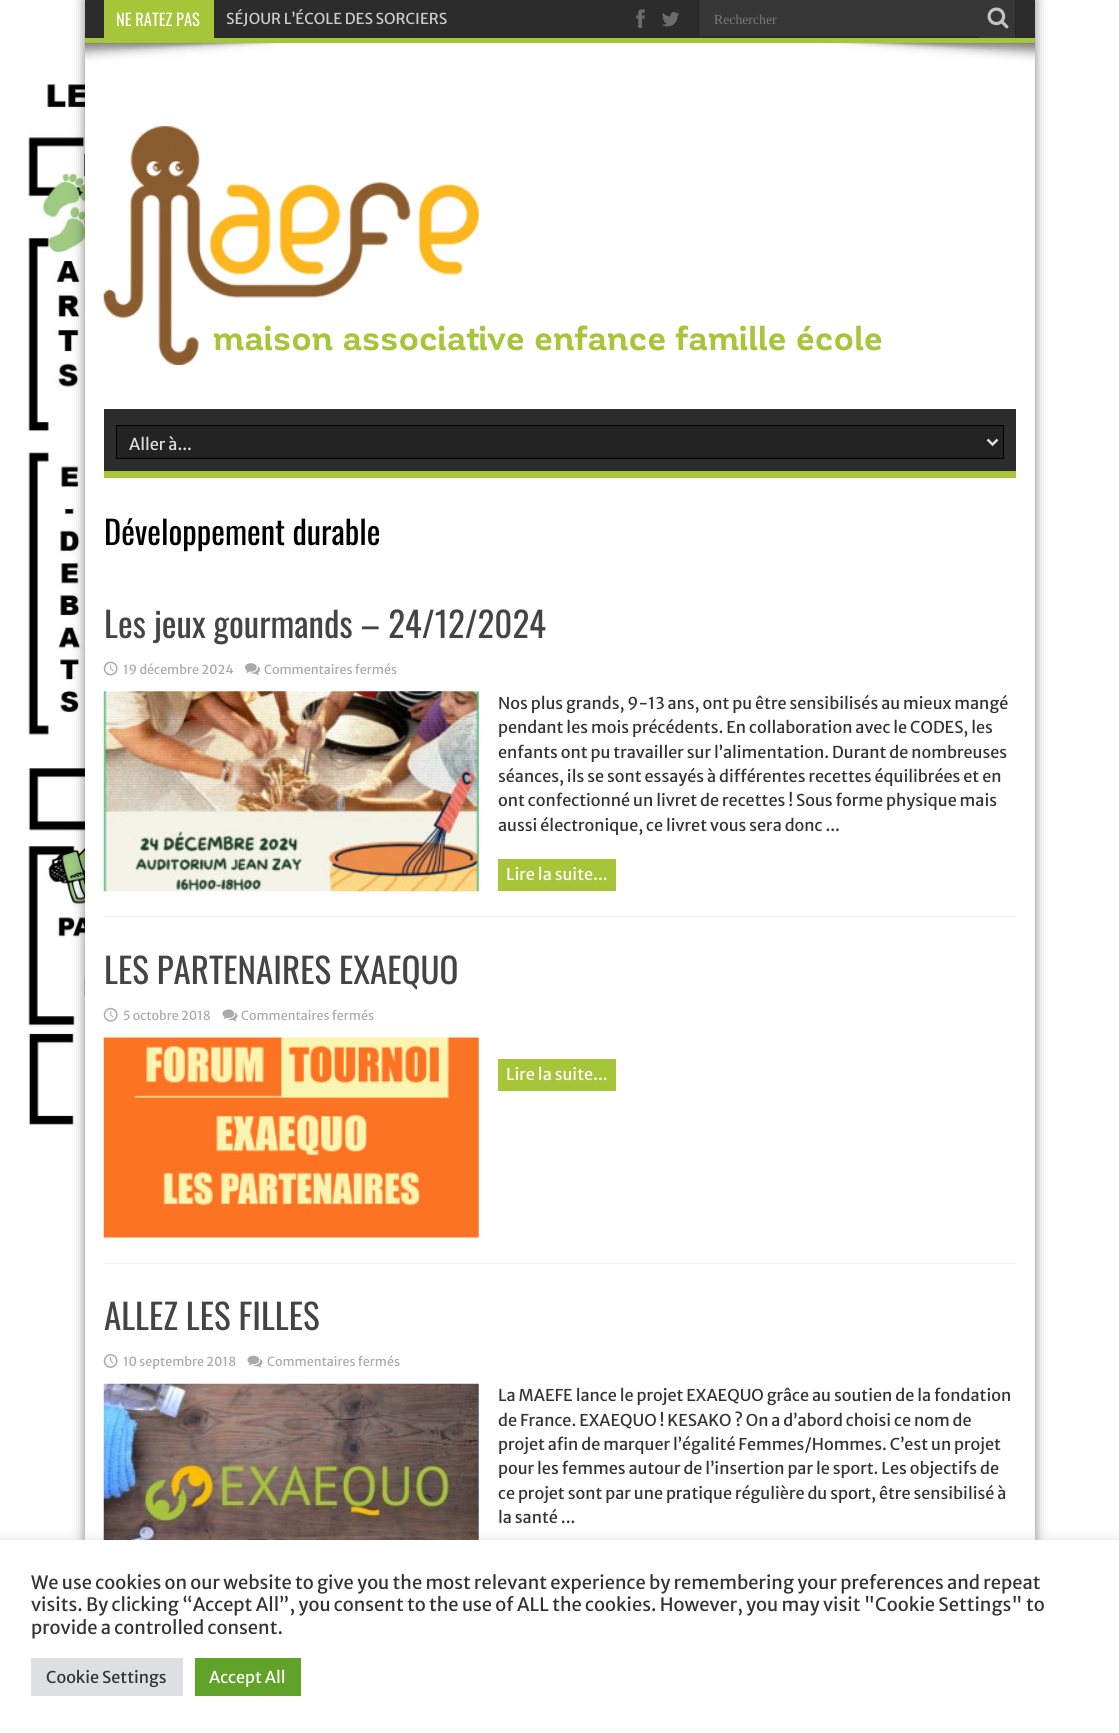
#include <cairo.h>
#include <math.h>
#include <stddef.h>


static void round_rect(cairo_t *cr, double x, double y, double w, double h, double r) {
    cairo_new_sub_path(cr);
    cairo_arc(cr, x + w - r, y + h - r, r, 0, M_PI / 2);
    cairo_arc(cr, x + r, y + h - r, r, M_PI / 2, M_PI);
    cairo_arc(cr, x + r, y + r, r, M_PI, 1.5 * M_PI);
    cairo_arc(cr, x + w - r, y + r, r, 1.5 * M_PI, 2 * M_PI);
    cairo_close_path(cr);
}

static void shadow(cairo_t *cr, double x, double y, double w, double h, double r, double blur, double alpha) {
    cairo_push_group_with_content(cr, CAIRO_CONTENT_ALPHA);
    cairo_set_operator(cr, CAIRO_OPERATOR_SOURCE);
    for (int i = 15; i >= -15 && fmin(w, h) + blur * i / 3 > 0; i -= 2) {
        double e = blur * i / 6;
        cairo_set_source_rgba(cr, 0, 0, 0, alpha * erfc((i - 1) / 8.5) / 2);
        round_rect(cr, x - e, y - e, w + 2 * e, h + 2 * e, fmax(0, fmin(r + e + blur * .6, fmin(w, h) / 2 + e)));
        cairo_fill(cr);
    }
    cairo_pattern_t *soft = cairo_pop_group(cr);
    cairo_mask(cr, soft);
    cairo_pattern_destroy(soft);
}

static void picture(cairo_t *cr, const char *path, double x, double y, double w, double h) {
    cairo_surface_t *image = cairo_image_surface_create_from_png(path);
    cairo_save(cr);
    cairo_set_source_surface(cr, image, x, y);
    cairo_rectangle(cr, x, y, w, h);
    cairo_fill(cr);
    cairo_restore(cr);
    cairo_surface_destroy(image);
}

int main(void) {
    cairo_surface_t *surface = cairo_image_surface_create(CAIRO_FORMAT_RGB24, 1119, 1733);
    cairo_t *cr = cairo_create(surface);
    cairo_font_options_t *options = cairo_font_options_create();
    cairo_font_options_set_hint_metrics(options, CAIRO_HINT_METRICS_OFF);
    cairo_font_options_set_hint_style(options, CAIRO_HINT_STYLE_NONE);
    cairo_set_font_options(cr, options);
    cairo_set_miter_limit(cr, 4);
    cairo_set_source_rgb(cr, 1, 1, 1);
    cairo_paint(cr);
    picture(cr, "img1.png", 28, 83, 57, 1071);
    cairo_set_source_rgb(cr, 0, 0, 0);
    shadow(cr, 85, 0, 950, 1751, 0, 6, 0.5);
    cairo_set_source_rgb(cr, 1, 1, 1);
    cairo_rectangle(cr, 85, 43, 950, 1497);
    cairo_fill(cr);
    cairo_set_source_rgb(cr, 0.173, 0.173, 0.173);
    cairo_rectangle(cr, 85, 0, 950, 38);
    cairo_fill(cr);
    cairo_set_source_rgb(cr, 0.651, 0.773, 0.224);
    cairo_rectangle(cr, 85, 38, 950, 5);
    cairo_fill(cr);
    cairo_rectangle(cr, 104, 0, 110, 38);
    cairo_fill(cr);
    cairo_select_font_face(cr, "Oswald", CAIRO_FONT_SLANT_NORMAL, CAIRO_FONT_WEIGHT_NORMAL);
    cairo_set_font_size(cr, 16.5);
    cairo_set_source_rgb(cr, 1, 1, 1);
    cairo_move_to(cr, 116, 26);
    cairo_show_text(cr, "NE RATEZ PAS");
    cairo_select_font_face(cr, "Merriweather Sans", CAIRO_FONT_SLANT_NORMAL, CAIRO_FONT_WEIGHT_NORMAL);
    cairo_set_font_size(cr, 15);
    cairo_set_source_rgb(cr, 0.8, 0.8, 0.8);
    cairo_move_to(cr, 226, 24);
    cairo_show_text(cr, "SÉJOUR L’ÉCOLE DES SORCIERS");
    picture(cr, "img2.png", 636, 9, 9, 19);
    picture(cr, "img3.png", 662, 12, 17, 15);
    cairo_set_source_rgb(cr, 0.216, 0.216, 0.216);
    cairo_rectangle(cr, 699, 0, 280, 36);
    cairo_fill(cr);
    cairo_set_source_rgb(cr, 0.145, 0.145, 0.145);
    cairo_rectangle(cr, 698, 0, 1, 36);
    cairo_fill(cr);
    cairo_select_font_face(cr, "Liberation Serif", CAIRO_FONT_SLANT_NORMAL, CAIRO_FONT_WEIGHT_NORMAL);
    cairo_set_font_size(cr, 13.75);
    cairo_set_source_rgb(cr, 0.471, 0.471, 0.471);
    cairo_move_to(cr, 714, 24);
    cairo_show_text(cr, "Rechercher");
    cairo_set_source_rgb(cr, 0.216, 0.216, 0.216);
    cairo_rectangle(cr, 979, 0, 36, 38);
    cairo_fill(cr);
    cairo_set_source_rgb(cr, 0.145, 0.145, 0.145);
    cairo_rectangle(cr, 1015, 0, 1, 38);
    cairo_fill(cr);
    picture(cr, "img4.png", 987, 7, 22, 22);
    picture(cr, "img5.png", 85, 43, 950, 18);
    picture(cr, "img6.png", 103, 126, 376, 239);
    cairo_select_font_face(cr, "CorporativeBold", CAIRO_FONT_SLANT_NORMAL, CAIRO_FONT_WEIGHT_BOLD);
    cairo_set_font_size(cr, 34.1);
    cairo_set_source_rgb(cr, 0.651, 0.773, 0.224);
    cairo_move_to(cr, 213, 350);
    cairo_show_text(cr, "maison associative enfance famille école");
    cairo_set_source_rgb(cr, 0.173, 0.173, 0.173);
    cairo_rectangle(cr, 104, 409, 912, 62);
    cairo_fill(cr);
    cairo_set_source_rgb(cr, 0.651, 0.773, 0.224);
    cairo_rectangle(cr, 104, 471, 912, 7);
    cairo_fill(cr);
    cairo_set_source_rgb(cr, 0.133, 0.133, 0.133);
    cairo_rectangle(cr, 116.5, 425.5, 887, 33);
    cairo_fill_preserve(cr);
    cairo_set_source_rgb(cr, 0, 0, 0);
    cairo_set_line_width(cr, 1);
    cairo_stroke(cr);
    cairo_new_path(cr);
    cairo_move_to(cr, 987.5, 439.5);
    cairo_line_to(cr, 992.5, 444.5);
    cairo_line_to(cr, 997.5, 439.5);
    cairo_set_source_rgb(cr, 0.867, 0.867, 0.867);
    cairo_set_line_width(cr, 2.5);
    cairo_stroke(cr);
    cairo_select_font_face(cr, "Merriweather Sans", CAIRO_FONT_SLANT_NORMAL, CAIRO_FONT_WEIGHT_NORMAL);
    cairo_set_font_size(cr, 16.25);
    cairo_move_to(cr, 129, 450);
    cairo_show_text(cr, "Aller à...");
    cairo_select_font_face(cr, "Oswald", CAIRO_FONT_SLANT_NORMAL, CAIRO_FONT_WEIGHT_NORMAL);
    cairo_set_font_size(cr, 32.5);
    cairo_set_source_rgb(cr, 0, 0, 0);
    cairo_move_to(cr, 104, 545);
    cairo_show_text(cr, "Développement durable");
    cairo_set_source_rgb(cr, 0.949, 0.949, 0.949);
    cairo_rectangle(cr, 104, 916, 912, 1);
    cairo_fill(cr);
    cairo_set_font_size(cr, 35);
    cairo_set_source_rgb(cr, 0.267, 0.267, 0.267);
    cairo_move_to(cr, 104, 638);
    cairo_show_text(cr, "Les jeux gourmands – 24/12/2024");
    picture(cr, "img7.png", 103, 661, 15, 15);
    cairo_select_font_face(cr, "Merriweather Sans", CAIRO_FONT_SLANT_NORMAL, CAIRO_FONT_WEIGHT_NORMAL);
    cairo_set_font_size(cr, 12.5);
    cairo_set_source_rgb(cr, 0.667, 0.667, 0.667);
    cairo_move_to(cr, 123, 674);
    cairo_show_text(cr, "19 décembre 2024");
    picture(cr, "img8.png", 245, 663, 15, 12);
    cairo_move_to(cr, 264, 674);
    cairo_show_text(cr, "Commentaires fermés");
    picture(cr, "img9.png", 103, 691, 376, 201);
    cairo_set_font_size(cr, 16.25);
    cairo_set_source_rgb(cr, 0.2, 0.2, 0.2);
    cairo_move_to(cr, 498, 709);
    cairo_show_text(cr, "Nos plus grands, 9-13 ans, ont pu être sensibilisés au mieux mangé");
    cairo_move_to(cr, 498, 733);
    cairo_show_text(cr, "pendant les mois précédents. En collaboration avec le CODES, les");
    cairo_move_to(cr, 498, 758);
    cairo_show_text(cr, "enfants ont pu travailler sur l’alimentation. Durant de nombreuses");
    cairo_move_to(cr, 498, 782);
    cairo_show_text(cr, "séances, ils se sont essayés à différentes recettes équilibrées et en");
    cairo_move_to(cr, 498, 806);
    cairo_show_text(cr, "ont confectionné un livret de recettes ! Sous forme physique mais");
    cairo_move_to(cr, 498, 831);
    cairo_show_text(cr, "aussi électronique, ce livret vous sera donc ...");
    cairo_set_source_rgb(cr, 0.651, 0.773, 0.224);
    cairo_rectangle(cr, 498, 859, 118, 32);
    cairo_fill(cr);
    cairo_set_source_rgb(cr, 1, 1, 1);
    cairo_move_to(cr, 506, 880);
    cairo_show_text(cr, "Lire la suite...");
    cairo_set_source_rgb(cr, 0.949, 0.949, 0.949);
    cairo_rectangle(cr, 104, 1263, 912, 1);
    cairo_fill(cr);
    cairo_select_font_face(cr, "Oswald", CAIRO_FONT_SLANT_NORMAL, CAIRO_FONT_WEIGHT_NORMAL);
    cairo_set_font_size(cr, 35);
    cairo_set_source_rgb(cr, 0.267, 0.267, 0.267);
    cairo_move_to(cr, 104, 984);
    cairo_show_text(cr, "LES PARTENAIRES EXAEQUO");
    picture(cr, "img10.png", 103, 1007, 15, 15);
    cairo_select_font_face(cr, "Merriweather Sans", CAIRO_FONT_SLANT_NORMAL, CAIRO_FONT_WEIGHT_NORMAL);
    cairo_set_font_size(cr, 12.5);
    cairo_set_source_rgb(cr, 0.667, 0.667, 0.667);
    cairo_move_to(cr, 123, 1020);
    cairo_show_text(cr, "5 octobre 2018");
    picture(cr, "img11.png", 222, 1009, 16, 13);
    cairo_move_to(cr, 241, 1020);
    cairo_show_text(cr, "Commentaires fermés");
    picture(cr, "img12.png", 103, 1037, 376, 201);
    cairo_set_source_rgb(cr, 0.651, 0.773, 0.224);
    cairo_rectangle(cr, 498, 1059, 118, 32);
    cairo_fill(cr);
    cairo_set_font_size(cr, 16.25);
    cairo_set_source_rgb(cr, 1, 1, 1);
    cairo_move_to(cr, 506, 1080);
    cairo_show_text(cr, "Lire la suite...");
    cairo_select_font_face(cr, "Oswald", CAIRO_FONT_SLANT_NORMAL, CAIRO_FONT_WEIGHT_NORMAL);
    cairo_set_font_size(cr, 35);
    cairo_set_source_rgb(cr, 0.267, 0.267, 0.267);
    cairo_move_to(cr, 104, 1330);
    cairo_show_text(cr, "ALLEZ LES FILLES");
    picture(cr, "img13.png", 103, 1354, 15, 14);
    cairo_select_font_face(cr, "Merriweather Sans", CAIRO_FONT_SLANT_NORMAL, CAIRO_FONT_WEIGHT_NORMAL);
    cairo_set_font_size(cr, 12.5);
    cairo_set_source_rgb(cr, 0.667, 0.667, 0.667);
    cairo_move_to(cr, 123, 1366);
    cairo_show_text(cr, "10 septembre 2018");
    picture(cr, "img14.png", 247, 1355, 16, 13);
    cairo_move_to(cr, 267, 1366);
    cairo_show_text(cr, "Commentaires fermés");
    picture(cr, "img15.png", 103, 1383, 376, 157);
    cairo_set_font_size(cr, 16.25);
    cairo_set_source_rgb(cr, 0.2, 0.2, 0.2);
    cairo_move_to(cr, 498, 1401);
    cairo_show_text(cr, "La MAEFE lance le projet EXAEQUO grâce au soutien de la fondation");
    cairo_move_to(cr, 498, 1426);
    cairo_show_text(cr, "de France. EXAEQUO ! KESAKO ? On a d’abord choisi ce nom de");
    cairo_move_to(cr, 498, 1450);
    cairo_show_text(cr, "projet afin de marquer l’égalité Femmes/Hommes. C’est un projet");
    cairo_move_to(cr, 498, 1474);
    cairo_show_text(cr, "pour les femmes autour de l’insertion par le sport. Les objectifs de");
    cairo_move_to(cr, 498, 1499);
    cairo_show_text(cr, "ce projet sont par une pratique régulière du sport, être sensibilisé à");
    cairo_move_to(cr, 498, 1523);
    cairo_show_text(cr, "la santé ...");
    cairo_set_source_rgb(cr, 0.675, 0.671, 0.671);
    shadow(cr, 0, 1539, 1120, 194, 0, 6, 0.3);
    cairo_set_source_rgb(cr, 1, 1, 1);
    cairo_rectangle(cr, 0, 1540, 1119, 193);
    cairo_fill(cr);
    cairo_set_font_size(cr, 18.33);
    cairo_set_source_rgb(cr, 0.2, 0.2, 0.2);
    cairo_move_to(cr, 31, 1589);
    cairo_show_text(cr, "We use cookies on our website to give you the most relevant experience by remembering your preferences and repeat");
    cairo_move_to(cr, 31, 1611);
    cairo_show_text(cr, "visits. By clicking “Accept All”, you consent to the use of ALL the cookies. However, you may visit \"Cookie Settings\" to");
    cairo_move_to(cr, 31, 1634);
    cairo_show_text(cr, "provide a controlled consent.");
    cairo_set_source_rgb(cr, 0.871, 0.875, 0.878);
    cairo_rectangle(cr, 31, 1658, 152, 38);
    cairo_fill(cr);
    cairo_set_font_size(cr, 16.25);
    cairo_set_source_rgb(cr, 0.2, 0.2, 0.2);
    cairo_move_to(cr, 46, 1683);
    cairo_show_text(cr, "Cookie Settings");
    cairo_set_source_rgb(cr, 0.38, 0.635, 0.161);
    cairo_rectangle(cr, 195, 1658, 106, 38);
    cairo_fill(cr);
    cairo_set_source_rgb(cr, 1, 1, 1);
    cairo_move_to(cr, 209, 1683);
    cairo_show_text(cr, "Accept All");
    cairo_surface_write_to_png(surface, "page.png");
    cairo_font_options_destroy(options);
    cairo_destroy(cr);
    cairo_surface_destroy(surface);
    return 0;
}
